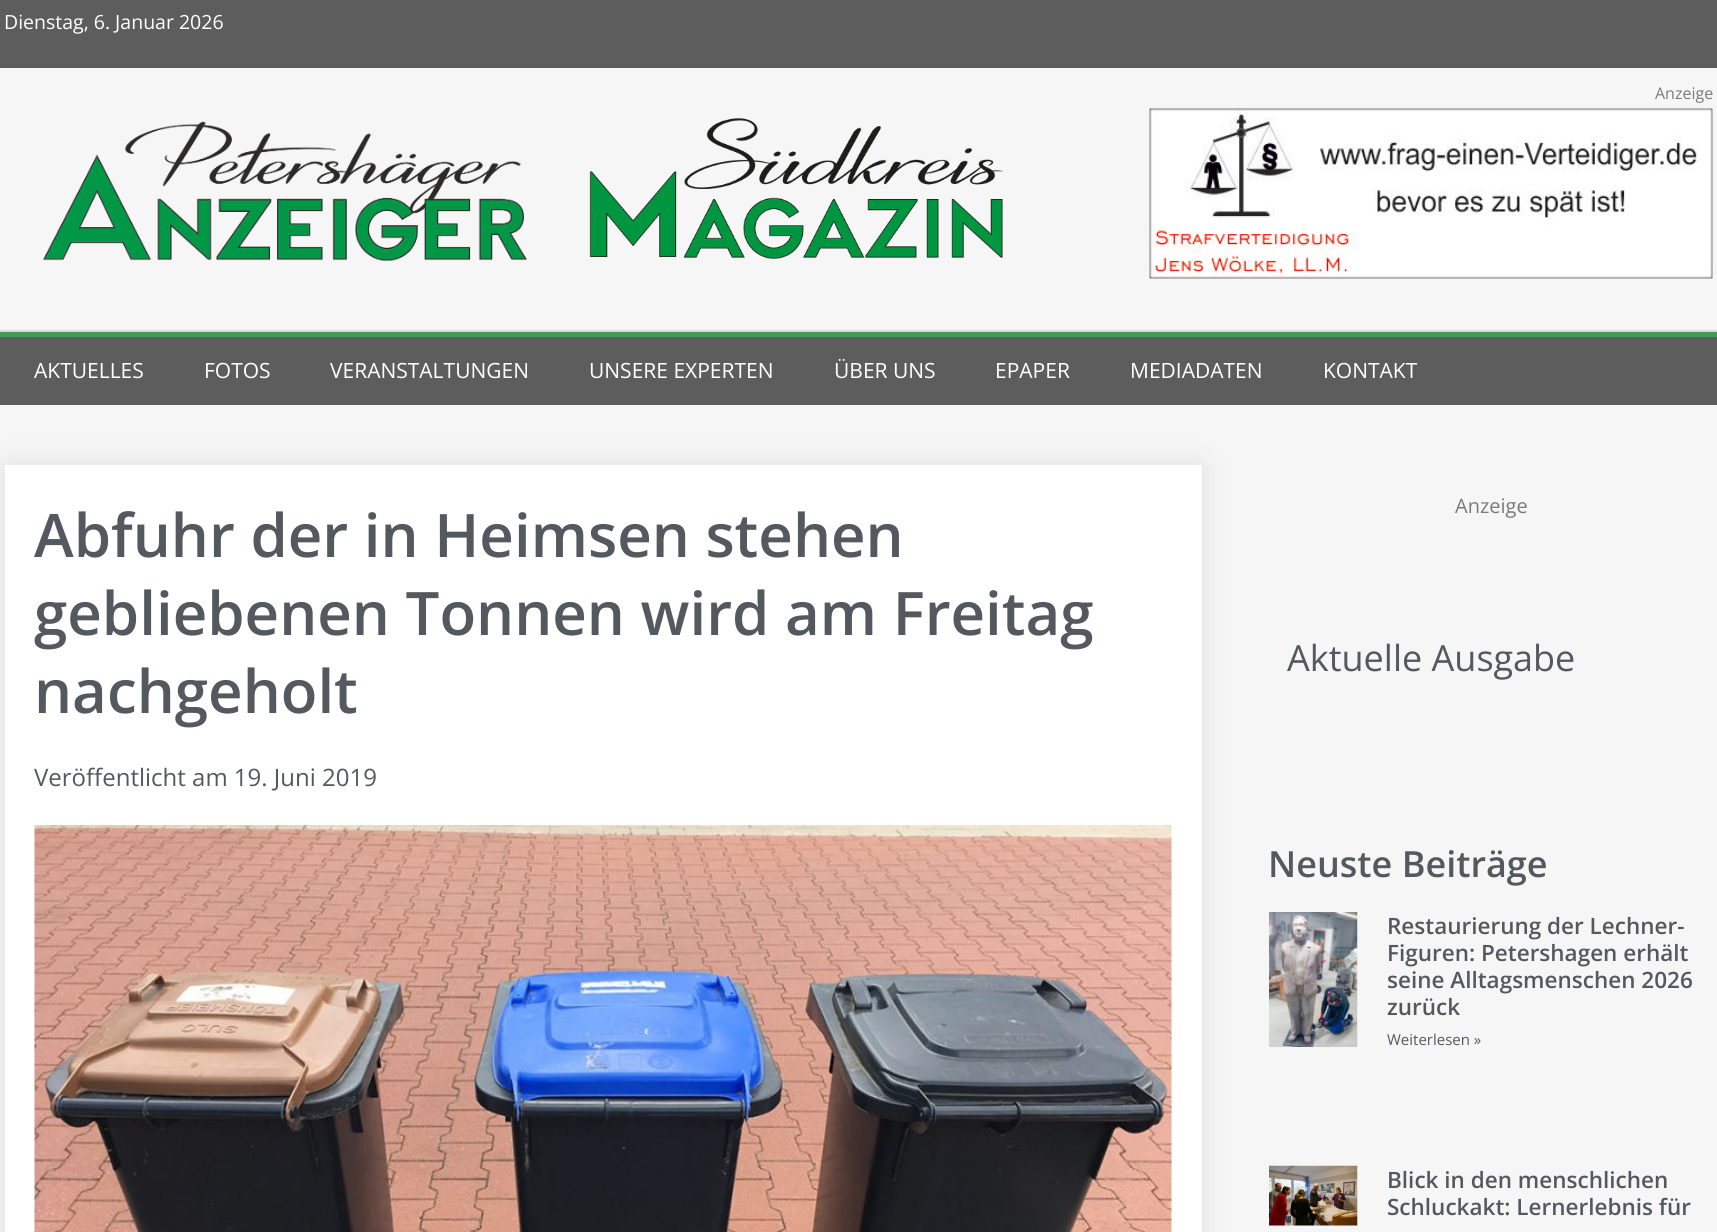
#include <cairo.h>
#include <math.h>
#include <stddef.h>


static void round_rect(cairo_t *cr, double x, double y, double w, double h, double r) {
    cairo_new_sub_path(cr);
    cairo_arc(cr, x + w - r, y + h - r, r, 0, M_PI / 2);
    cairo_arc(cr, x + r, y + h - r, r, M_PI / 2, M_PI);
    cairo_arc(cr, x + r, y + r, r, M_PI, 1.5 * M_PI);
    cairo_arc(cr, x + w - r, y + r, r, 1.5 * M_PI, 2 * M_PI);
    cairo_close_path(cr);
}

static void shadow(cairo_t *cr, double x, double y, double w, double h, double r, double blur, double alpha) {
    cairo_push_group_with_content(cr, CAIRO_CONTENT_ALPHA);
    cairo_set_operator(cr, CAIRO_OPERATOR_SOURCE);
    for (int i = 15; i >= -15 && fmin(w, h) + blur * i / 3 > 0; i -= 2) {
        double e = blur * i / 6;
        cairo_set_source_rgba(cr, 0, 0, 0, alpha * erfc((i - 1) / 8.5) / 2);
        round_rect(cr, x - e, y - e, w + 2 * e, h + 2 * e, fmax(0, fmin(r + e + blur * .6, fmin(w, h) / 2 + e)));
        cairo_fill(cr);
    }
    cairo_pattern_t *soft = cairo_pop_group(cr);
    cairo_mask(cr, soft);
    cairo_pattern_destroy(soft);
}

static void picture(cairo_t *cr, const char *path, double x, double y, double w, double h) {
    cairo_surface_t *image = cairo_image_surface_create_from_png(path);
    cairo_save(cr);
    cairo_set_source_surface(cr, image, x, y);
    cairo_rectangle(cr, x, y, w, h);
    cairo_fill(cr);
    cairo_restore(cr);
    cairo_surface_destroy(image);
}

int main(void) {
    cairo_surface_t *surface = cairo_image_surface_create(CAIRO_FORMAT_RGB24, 1717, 1232);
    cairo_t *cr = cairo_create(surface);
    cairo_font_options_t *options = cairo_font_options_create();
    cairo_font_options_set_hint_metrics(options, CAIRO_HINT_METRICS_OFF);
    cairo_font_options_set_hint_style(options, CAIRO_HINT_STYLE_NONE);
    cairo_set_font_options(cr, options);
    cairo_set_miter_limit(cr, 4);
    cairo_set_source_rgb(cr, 0.961, 0.961, 0.961);
    cairo_paint(cr);
    cairo_set_source_rgb(cr, 0.365, 0.365, 0.365);
    cairo_rectangle(cr, 0, 0, 1717, 68);
    cairo_fill(cr);
    cairo_select_font_face(cr, "Open Sans", CAIRO_FONT_SLANT_NORMAL, CAIRO_FONT_WEIGHT_NORMAL);
    cairo_set_font_size(cr, 19.5);
    cairo_set_source_rgb(cr, 1, 1, 1);
    cairo_move_to(cr, 4, 29);
    cairo_show_text(cr, "Dienstag, 6. Januar 2026");
    cairo_set_source_rgb(cr, 0.847, 0.847, 0.847);
    cairo_rectangle(cr, 0, 330, 1717, 2);
    cairo_fill(cr);
    cairo_set_font_size(cr, 16);
    cairo_set_source_rgb(cr, 0.478, 0.478, 0.478);
    cairo_move_to(cr, 1655, 99);
    cairo_show_text(cr, "Anzeige");
    picture(cr, "img1.png", 1149, 108, 564, 171);
    picture(cr, "img2.png", 43, 121, 484, 141);
    picture(cr, "img3.png", 589, 118, 414, 141);
    cairo_set_source_rgb(cr, 0.365, 0.365, 0.365);
    cairo_rectangle(cr, 0, 337, 1717, 68);
    cairo_fill(cr);
    cairo_set_source_rgb(cr, 0.286, 0.596, 0.329);
    cairo_rectangle(cr, 0, 332, 1717, 5);
    cairo_fill(cr);
    cairo_set_font_size(cr, 21);
    cairo_set_source_rgb(cr, 1, 1, 1);
    cairo_move_to(cr, 34, 378);
    cairo_show_text(cr, "AKTUELLES");
    cairo_move_to(cr, 204, 378);
    cairo_show_text(cr, "FOTOS");
    cairo_move_to(cr, 330, 378);
    cairo_show_text(cr, "VERANSTALTUNGEN");
    cairo_move_to(cr, 589, 378);
    cairo_show_text(cr, "UNSERE EXPERTEN");
    cairo_move_to(cr, 834, 378);
    cairo_show_text(cr, "ÜBER UNS");
    cairo_move_to(cr, 995, 378);
    cairo_show_text(cr, "EPAPER");
    cairo_move_to(cr, 1130, 378);
    cairo_show_text(cr, "MEDIADATEN");
    cairo_move_to(cr, 1323, 378);
    cairo_show_text(cr, "KONTAKT");
    cairo_set_source_rgb(cr, 0, 0, 0);
    shadow(cr, 5, 465, 1197, 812, 0, 15, 0.09);
    cairo_set_source_rgb(cr, 1, 1, 1);
    cairo_rectangle(cr, 5, 465, 1197, 767);
    cairo_fill(cr);
    cairo_select_font_face(cr, "Open Sans SemiBold", CAIRO_FONT_SLANT_NORMAL, CAIRO_FONT_WEIGHT_NORMAL);
    cairo_set_font_size(cr, 60);
    cairo_set_source_rgb(cr, 0.329, 0.349, 0.373);
    cairo_move_to(cr, 34, 557);
    cairo_show_text(cr, "Abfuhr der in Heimsen stehen");
    cairo_move_to(cr, 34, 635);
    cairo_show_text(cr, "gebliebenen Tonnen wird am Freitag");
    cairo_move_to(cr, 34, 713);
    cairo_show_text(cr, "nachgeholt");
    cairo_select_font_face(cr, "Open Sans", CAIRO_FONT_SLANT_NORMAL, CAIRO_FONT_WEIGHT_NORMAL);
    cairo_set_font_size(cr, 24);
    cairo_move_to(cr, 34, 786);
    cairo_show_text(cr, "Veröffentlicht am 19. Juni 2019");
    picture(cr, "img4.png", 34, 825, 1138, 407);
    cairo_set_font_size(cr, 20);
    cairo_set_source_rgb(cr, 0.478, 0.478, 0.478);
    cairo_move_to(cr, 1455, 513);
    cairo_show_text(cr, "Anzeige");
    cairo_set_font_size(cr, 36);
    cairo_set_source_rgb(cr, 0.329, 0.349, 0.373);
    cairo_move_to(cr, 1287, 671);
    cairo_show_text(cr, "Aktuelle Ausgabe");
    cairo_select_font_face(cr, "Open Sans SemiBold", CAIRO_FONT_SLANT_NORMAL, CAIRO_FONT_WEIGHT_NORMAL);
    cairo_move_to(cr, 1268, 877);
    cairo_show_text(cr, "Neuste Beiträge");
    picture(cr, "img5.png", 1269, 912, 89, 135);
    cairo_set_font_size(cr, 22.5);
    cairo_move_to(cr, 1387, 934);
    cairo_show_text(cr, "Restaurierung der Lechner-");
    cairo_move_to(cr, 1387, 961);
    cairo_show_text(cr, "Figuren: Petershagen erhält");
    cairo_move_to(cr, 1387, 988);
    cairo_show_text(cr, "seine Alltagsmenschen 2026");
    cairo_move_to(cr, 1387, 1015);
    cairo_show_text(cr, "zurück");
    cairo_select_font_face(cr, "Open Sans", CAIRO_FONT_SLANT_NORMAL, CAIRO_FONT_WEIGHT_NORMAL);
    cairo_set_font_size(cr, 15);
    cairo_move_to(cr, 1387, 1045);
    cairo_show_text(cr, "Weiterlesen »");
    picture(cr, "img6.png", 1269, 1165, 89, 61);
    cairo_select_font_face(cr, "Open Sans SemiBold", CAIRO_FONT_SLANT_NORMAL, CAIRO_FONT_WEIGHT_NORMAL);
    cairo_set_font_size(cr, 22.5);
    cairo_move_to(cr, 1387, 1188);
    cairo_show_text(cr, "Blick in den menschlichen");
    cairo_move_to(cr, 1387, 1215);
    cairo_show_text(cr, "Schluckakt: Lernerlebnis für");
    cairo_surface_write_to_png(surface, "page.png");
    cairo_font_options_destroy(options);
    cairo_destroy(cr);
    cairo_surface_destroy(surface);
    return 0;
}
